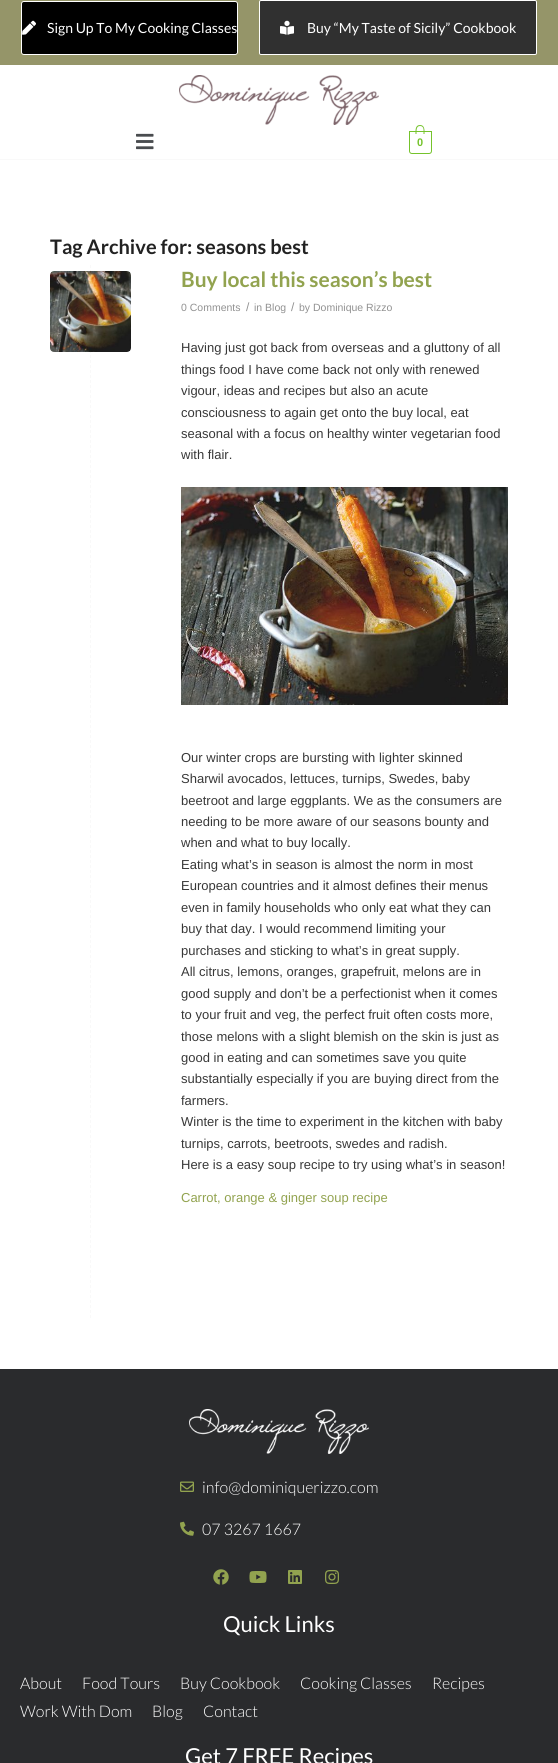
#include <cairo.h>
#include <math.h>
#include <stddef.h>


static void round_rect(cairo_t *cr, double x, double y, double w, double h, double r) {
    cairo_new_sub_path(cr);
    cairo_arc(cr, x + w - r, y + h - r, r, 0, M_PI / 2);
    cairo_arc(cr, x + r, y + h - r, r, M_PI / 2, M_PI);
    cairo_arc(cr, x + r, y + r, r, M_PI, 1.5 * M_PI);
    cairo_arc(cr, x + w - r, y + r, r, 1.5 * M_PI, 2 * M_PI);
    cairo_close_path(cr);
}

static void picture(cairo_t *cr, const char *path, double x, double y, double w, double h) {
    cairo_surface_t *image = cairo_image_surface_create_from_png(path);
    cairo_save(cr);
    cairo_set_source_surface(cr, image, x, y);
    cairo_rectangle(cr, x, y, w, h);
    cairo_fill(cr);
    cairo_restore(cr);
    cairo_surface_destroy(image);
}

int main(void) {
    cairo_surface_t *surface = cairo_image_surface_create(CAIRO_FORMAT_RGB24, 558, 1763);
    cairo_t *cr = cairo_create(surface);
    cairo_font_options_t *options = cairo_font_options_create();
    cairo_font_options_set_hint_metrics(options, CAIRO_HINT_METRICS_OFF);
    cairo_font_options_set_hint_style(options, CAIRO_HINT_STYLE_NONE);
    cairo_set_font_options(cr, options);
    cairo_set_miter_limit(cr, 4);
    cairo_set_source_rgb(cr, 1, 1, 1);
    cairo_paint(cr);
    cairo_set_source_rgb(cr, 0.584, 0.584, 0.412);
    cairo_rectangle(cr, 0, 0, 558, 65);
    cairo_fill(cr);
    round_rect(cr, 21.5, 1.5, 216, 53, 2.5);
    cairo_set_source_rgb(cr, 1, 1, 1);
    cairo_set_line_width(cr, 1);
    cairo_stroke(cr);
    cairo_set_source_rgb(cr, 0, 0, 0);
    round_rect(cr, 22, 2, 215, 52, 2);
    cairo_fill(cr);
    picture(cr, "img1.png", 22, 20, 14, 15);
    cairo_select_font_face(cr, "Lato", CAIRO_FONT_SLANT_NORMAL, CAIRO_FONT_WEIGHT_NORMAL);
    cairo_set_font_size(cr, 14);
    cairo_set_source_rgb(cr, 1, 1, 1);
    cairo_move_to(cr, 47, 33);
    cairo_show_text(cr, "Sign Up To My Cooking Classes");
    cairo_set_source_rgb(cr, 0.188, 0.188, 0.188);
    round_rect(cr, 259.5, 0.5, 277, 54, 1.5);
    cairo_fill_preserve(cr);
    cairo_set_source_rgb(cr, 1, 1, 1);
    cairo_stroke(cr);
    picture(cr, "img2.png", 280, 20, 14, 15);
    cairo_move_to(cr, 307, 33);
    cairo_show_text(cr, "Buy “My Taste of Sicily” Cookbook");
    picture(cr, "img3.png", 179, 75, 200, 50);
    picture(cr, "img4.png", 136, 133, 18, 17);
    cairo_new_path(cr);
    cairo_move_to(cr, 409.5, 131.5);
    cairo_line_to(cr, 431.5, 131.5);
    cairo_line_to(cr, 431.5, 151);
    cairo_curve_to(cr, 431.5, 152.5, 430.5, 153.5, 429, 153.5);
    cairo_line_to(cr, 412, 153.5);
    cairo_curve_to(cr, 410.5, 153.5, 409.5, 152.5, 409.5, 151);
    cairo_close_path(cr);
    cairo_set_source_rgb(cr, 0.459, 0.765, 0.173);
    cairo_stroke(cr);
    cairo_set_fill_rule(cr, CAIRO_FILL_RULE_EVEN_ODD);
    cairo_new_path(cr);
    cairo_move_to(cr, 420, 125);
    cairo_curve_to(cr, 425, 125, 424.5, 130.5, 424.5, 134);
    cairo_line_to(cr, 415.5, 134);
    cairo_curve_to(cr, 415.5, 130.5, 415, 125, 420, 125);
    cairo_close_path(cr);
    cairo_move_to(cr, 420, 126);
    cairo_curve_to(cr, 424.5, 126, 423.5, 131, 423.5, 134);
    cairo_line_to(cr, 416.5, 134);
    cairo_curve_to(cr, 416.5, 131, 416, 126, 420, 126);
    cairo_close_path(cr);
    cairo_fill(cr);
    cairo_select_font_face(cr, "Liberation Sans", CAIRO_FONT_SLANT_NORMAL, CAIRO_FONT_WEIGHT_BOLD);
    cairo_set_font_size(cr, 11);
    cairo_move_to(cr, 417, 146);
    cairo_show_text(cr, "0");
    cairo_set_source_rgb(cr, 0.973, 0.973, 0.973);
    cairo_rectangle(cr, 0, 159, 558, 1);
    cairo_fill(cr);
    cairo_select_font_face(cr, "Lato", CAIRO_FONT_SLANT_NORMAL, CAIRO_FONT_WEIGHT_BOLD);
    cairo_set_font_size(cr, 20);
    cairo_set_source_rgb(cr, 0.133, 0.133, 0.133);
    cairo_move_to(cr, 50, 254);
    cairo_show_text(cr, "Tag Archive for: seasons best");
    cairo_new_path(cr);
    cairo_move_to(cr, 90.5, 265);
    cairo_line_to(cr, 90.5, 1319);
    cairo_set_source_rgb(cr, 0.973, 0.973, 0.973);
    cairo_set_dash(cr, (double[]){3, 2}, 2, 0);
    cairo_stroke(cr);
    cairo_set_font_size(cr, 21);
    cairo_set_source_rgb(cr, 0.573, 0.639, 0.31);
    cairo_move_to(cr, 181, 287);
    cairo_show_text(cr, "Buy local this season’s best");
    cairo_select_font_face(cr, "Liberation Sans", CAIRO_FONT_SLANT_NORMAL, CAIRO_FONT_WEIGHT_NORMAL);
    cairo_set_font_size(cr, 10.5);
    cairo_set_source_rgb(cr, 0.569, 0.569, 0.569);
    cairo_move_to(cr, 181, 311);
    cairo_show_text(cr, "0 Comments");
    cairo_set_font_size(cr, 12);
    cairo_move_to(cr, 246, 311);
    cairo_show_text(cr, "/");
    cairo_set_font_size(cr, 10.5);
    cairo_move_to(cr, 254, 311);
    cairo_show_text(cr, "in Blog");
    cairo_set_font_size(cr, 12);
    cairo_move_to(cr, 291, 311);
    cairo_show_text(cr, "/");
    cairo_set_font_size(cr, 10.5);
    cairo_move_to(cr, 299, 311);
    cairo_show_text(cr, "by Dominique Rizzo");
    cairo_set_font_size(cr, 13);
    cairo_set_source_rgb(cr, 0.22, 0.22, 0.22);
    cairo_move_to(cr, 181, 352);
    cairo_show_text(cr, "Having just got back from overseas and a gluttony of all");
    cairo_move_to(cr, 181, 374);
    cairo_show_text(cr, "things food I have come back not only with renewed");
    cairo_move_to(cr, 181, 395);
    cairo_show_text(cr, "vigour, ideas and recipes but also an acute");
    cairo_move_to(cr, 181, 417);
    cairo_show_text(cr, "consciousness to again get onto the buy local, eat");
    cairo_move_to(cr, 181, 438);
    cairo_show_text(cr, "seasonal with a focus on healthy winter vegetarian food");
    cairo_move_to(cr, 181, 459);
    cairo_show_text(cr, "with flair.");
    picture(cr, "img5.png", 181, 487, 327, 218);
    cairo_move_to(cr, 181, 762);
    cairo_show_text(cr, "Our winter crops are bursting with lighter skinned");
    cairo_move_to(cr, 181, 783);
    cairo_show_text(cr, "Sharwil avocados, lettuces, turnips, Swedes, baby");
    cairo_move_to(cr, 181, 805);
    cairo_show_text(cr, "beetroot and large eggplants. We as the consumers are");
    cairo_move_to(cr, 181, 826);
    cairo_show_text(cr, "needing to be more aware of our seasons bounty and");
    cairo_move_to(cr, 181, 847);
    cairo_show_text(cr, "when and what to buy locally.");
    cairo_move_to(cr, 181, 869);
    cairo_show_text(cr, "Eating what’s in season is almost the norm in most");
    cairo_move_to(cr, 181, 890);
    cairo_show_text(cr, "European countries and it almost defines their menus");
    cairo_move_to(cr, 181, 912);
    cairo_show_text(cr, "even in family households who only eat what they can");
    cairo_move_to(cr, 181, 933);
    cairo_show_text(cr, "buy that day. I would recommend limiting your");
    cairo_move_to(cr, 181, 955);
    cairo_show_text(cr, "purchases and sticking to what’s in great supply.");
    cairo_move_to(cr, 181, 976);
    cairo_show_text(cr, "All citrus, lemons, oranges, grapefruit, melons are in");
    cairo_move_to(cr, 181, 998);
    cairo_show_text(cr, "good supply and don’t be a perfectionist when it comes");
    cairo_move_to(cr, 181, 1019);
    cairo_show_text(cr, "to your fruit and veg, the perfect fruit often costs more,");
    cairo_move_to(cr, 181, 1041);
    cairo_show_text(cr, "those melons with a slight blemish on the skin is just as");
    cairo_move_to(cr, 181, 1062);
    cairo_show_text(cr, "good in eating and can sometimes save you quite");
    cairo_move_to(cr, 181, 1083);
    cairo_show_text(cr, "substantially especially if you are buying direct from the");
    cairo_move_to(cr, 181, 1105);
    cairo_show_text(cr, "farmers.");
    cairo_move_to(cr, 181, 1126);
    cairo_show_text(cr, "Winter is the time to experiment in the kitchen with baby");
    cairo_move_to(cr, 181, 1148);
    cairo_show_text(cr, "turnips, carrots, beetroots, swedes and radish.");
    cairo_move_to(cr, 181, 1169);
    cairo_show_text(cr, "Here is a easy soup recipe to try using what’s in season!");
    cairo_set_source_rgb(cr, 0.573, 0.639, 0.31);
    cairo_move_to(cr, 181, 1202);
    cairo_show_text(cr, "Carrot, orange & ginger soup recipe");
    picture(cr, "img6.png", 50, 271, 81, 81);
    cairo_set_source_rgb(cr, 0.165, 0.169, 0.176);
    cairo_rectangle(cr, 0, 1369, 558, 394);
    cairo_fill(cr);
    picture(cr, "img7.png", 189, 1409, 180, 45);
    picture(cr, "img8.png", 180, 1481, 14, 11);
    cairo_select_font_face(cr, "Lato Light", CAIRO_FONT_SLANT_NORMAL, CAIRO_FONT_WEIGHT_NORMAL);
    cairo_set_font_size(cr, 16);
    cairo_set_source_rgb(cr, 1, 1, 1);
    cairo_move_to(cr, 202, 1493);
    cairo_show_text(cr, "info@dominiquerizzo.com");
    picture(cr, "img9.png", 180, 1521, 14, 15);
    cairo_move_to(cr, 202, 1535);
    cairo_show_text(cr, "07 3267 1667");
    picture(cr, "img10.png", 213, 1569, 16, 16);
    picture(cr, "img11.png", 249, 1571, 18, 12);
    picture(cr, "img12.png", 288, 1570, 14, 14);
    picture(cr, "img13.png", 325, 1570, 14, 14);
    cairo_select_font_face(cr, "Lato", CAIRO_FONT_SLANT_NORMAL, CAIRO_FONT_WEIGHT_NORMAL);
    cairo_set_font_size(cr, 22);
    cairo_move_to(cr, 223, 1632);
    cairo_show_text(cr, "Quick Links");
    cairo_select_font_face(cr, "Lato Light", CAIRO_FONT_SLANT_NORMAL, CAIRO_FONT_WEIGHT_NORMAL);
    cairo_set_font_size(cr, 16);
    cairo_move_to(cr, 20, 1689);
    cairo_show_text(cr, "About");
    cairo_move_to(cr, 82, 1689);
    cairo_show_text(cr, "Food Tours");
    cairo_move_to(cr, 180, 1689);
    cairo_show_text(cr, "Buy Cookbook");
    cairo_move_to(cr, 300, 1689);
    cairo_show_text(cr, "Cooking Classes");
    cairo_move_to(cr, 432, 1689);
    cairo_show_text(cr, "Recipes");
    cairo_move_to(cr, 20, 1717);
    cairo_show_text(cr, "Work With Dom");
    cairo_move_to(cr, 152, 1717);
    cairo_show_text(cr, "Blog");
    cairo_move_to(cr, 203, 1717);
    cairo_show_text(cr, "Contact");
    cairo_select_font_face(cr, "Lato", CAIRO_FONT_SLANT_NORMAL, CAIRO_FONT_WEIGHT_NORMAL);
    cairo_set_font_size(cr, 22);
    cairo_move_to(cr, 185, 1764);
    cairo_show_text(cr, "Get 7 FREE Recipes");
    cairo_surface_write_to_png(surface, "page.png");
    cairo_font_options_destroy(options);
    cairo_destroy(cr);
    cairo_surface_destroy(surface);
    return 0;
}
